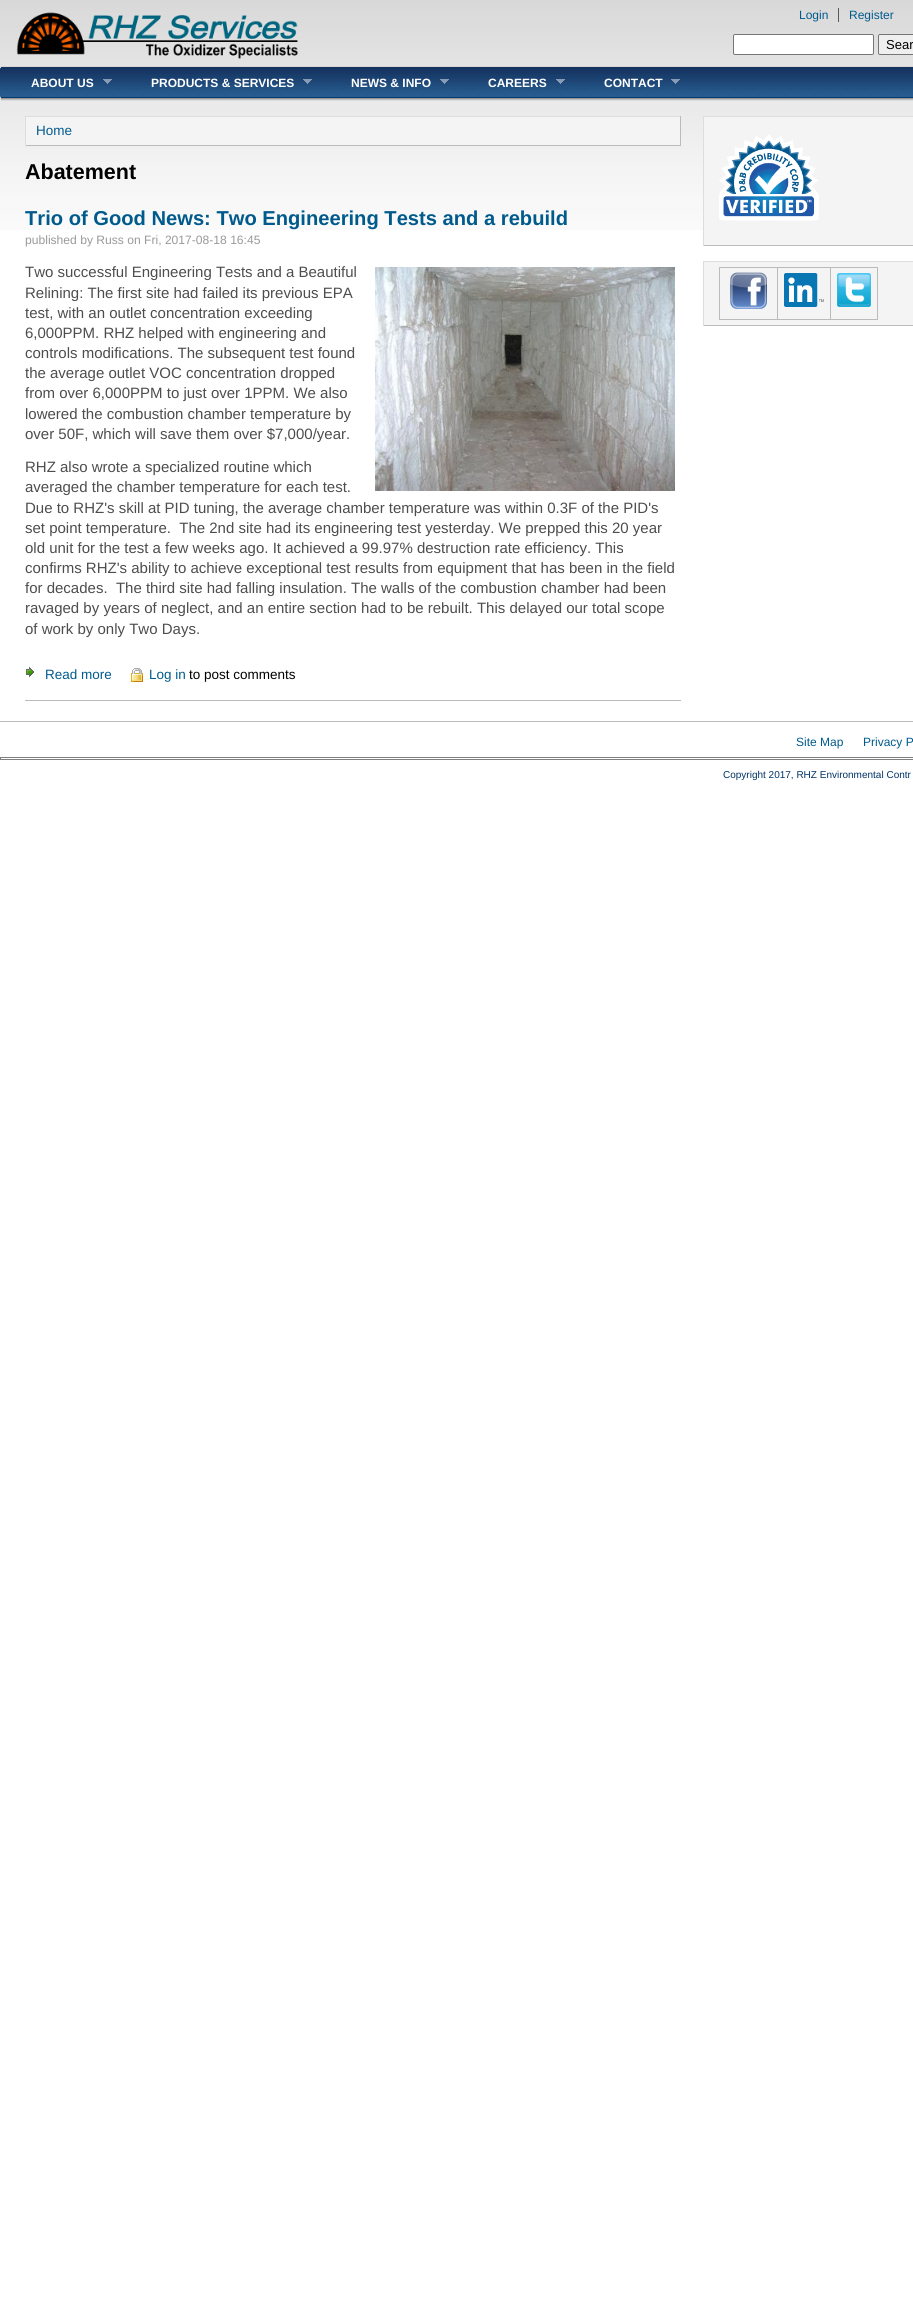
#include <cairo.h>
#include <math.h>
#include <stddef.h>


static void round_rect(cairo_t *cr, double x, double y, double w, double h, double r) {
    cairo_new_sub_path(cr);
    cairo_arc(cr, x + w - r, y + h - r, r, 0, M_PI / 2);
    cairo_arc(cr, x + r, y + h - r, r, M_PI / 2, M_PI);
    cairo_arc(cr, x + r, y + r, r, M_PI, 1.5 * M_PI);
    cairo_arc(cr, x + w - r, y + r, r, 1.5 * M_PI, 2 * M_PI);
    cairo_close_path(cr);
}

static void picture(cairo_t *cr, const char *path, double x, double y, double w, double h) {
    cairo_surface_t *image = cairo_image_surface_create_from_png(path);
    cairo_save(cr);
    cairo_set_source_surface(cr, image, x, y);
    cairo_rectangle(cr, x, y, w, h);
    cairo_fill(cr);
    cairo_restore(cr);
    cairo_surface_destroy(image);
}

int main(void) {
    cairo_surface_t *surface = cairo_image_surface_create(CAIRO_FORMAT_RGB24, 913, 2300);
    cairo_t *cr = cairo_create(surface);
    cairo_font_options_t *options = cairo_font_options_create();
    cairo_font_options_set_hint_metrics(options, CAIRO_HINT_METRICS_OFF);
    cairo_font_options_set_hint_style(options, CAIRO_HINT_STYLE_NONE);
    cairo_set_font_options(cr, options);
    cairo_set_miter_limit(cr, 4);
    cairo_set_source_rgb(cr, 1, 1, 1);
    cairo_paint(cr);
    picture(cr, "img1.png", 0, 0, 913, 230);
    picture(cr, "img2.png", 16, 12, 282, 47);
    cairo_select_font_face(cr, "Liberation Sans", CAIRO_FONT_SLANT_NORMAL, CAIRO_FONT_WEIGHT_NORMAL);
    cairo_set_font_size(cr, 12);
    cairo_set_source_rgb(cr, 0, 0.353, 0.549);
    cairo_move_to(cr, 799, 19);
    cairo_show_text(cr, "Login");
    cairo_set_source_rgb(cr, 0.353, 0.353, 0.353);
    cairo_rectangle(cr, 838, 8, 1, 14);
    cairo_fill(cr);
    cairo_set_source_rgb(cr, 0, 0.353, 0.549);
    cairo_move_to(cr, 849, 19);
    cairo_show_text(cr, "Register");
    cairo_set_source_rgb(cr, 1, 1, 1);
    round_rect(cr, 733.5, 34.5, 140, 20, 1.5);
    cairo_fill_preserve(cr);
    cairo_set_source_rgb(cr, 0.463, 0.463, 0.463);
    cairo_set_line_width(cr, 1);
    cairo_stroke(cr);
    cairo_set_source_rgb(cr, 0.937, 0.937, 0.937);
    round_rect(cr, 878.5, 34.5, 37, 20, 1.5);
    cairo_fill_preserve(cr);
    cairo_set_source_rgb(cr, 0.463, 0.463, 0.463);
    cairo_stroke(cr);
    cairo_set_font_size(cr, 13);
    cairo_set_source_rgb(cr, 0, 0, 0);
    cairo_move_to(cr, 886, 49);
    cairo_show_text(cr, "Sear");
    picture(cr, "img3.png", 1, 66, 912, 35);
    picture(cr, "img4.png", 0, 66, 1, 35);
    cairo_select_font_face(cr, "Liberation Sans", CAIRO_FONT_SLANT_NORMAL, CAIRO_FONT_WEIGHT_BOLD);
    cairo_set_font_size(cr, 12);
    cairo_set_source_rgb(cr, 1, 1, 1);
    cairo_move_to(cr, 31, 87);
    cairo_show_text(cr, "ABOUT US");
    picture(cr, "img5.png", 103, 79, 9, 5);
    cairo_move_to(cr, 151, 87);
    cairo_show_text(cr, "PRODUCTS & SERVICES");
    picture(cr, "img5.png", 303, 79, 9, 5);
    cairo_move_to(cr, 351, 87);
    cairo_show_text(cr, "NEWS & INFO");
    picture(cr, "img5.png", 440, 79, 9, 5);
    cairo_move_to(cr, 488, 87);
    cairo_show_text(cr, "CAREERS");
    picture(cr, "img5.png", 556, 79, 9, 5);
    cairo_move_to(cr, 604, 87);
    cairo_show_text(cr, "CONTACT");
    picture(cr, "img5.png", 671, 79, 9, 5);
    cairo_set_source_rgb(cr, 0.957, 0.957, 0.957);
    cairo_rectangle(cr, 26, 117, 654, 28);
    cairo_fill(cr);
    cairo_set_source_rgb(cr, 0.867, 0.867, 0.867);
    cairo_rectangle(cr, 25, 116, 656, 1);
    cairo_fill(cr);
    cairo_set_source_rgb(cr, 0.733, 0.733, 0.733);
    cairo_rectangle(cr, 680, 116, 1, 30);
    cairo_fill(cr);
    cairo_rectangle(cr, 25, 145, 656, 1);
    cairo_fill(cr);
    cairo_set_source_rgb(cr, 0.867, 0.867, 0.867);
    cairo_rectangle(cr, 25, 116, 1, 30);
    cairo_fill(cr);
    cairo_select_font_face(cr, "Liberation Sans", CAIRO_FONT_SLANT_NORMAL, CAIRO_FONT_WEIGHT_NORMAL);
    cairo_set_font_size(cr, 13.5);
    cairo_set_source_rgb(cr, 0, 0.353, 0.549);
    cairo_move_to(cr, 36, 135);
    cairo_show_text(cr, "Home");
    cairo_select_font_face(cr, "Liberation Sans", CAIRO_FONT_SLANT_NORMAL, CAIRO_FONT_WEIGHT_BOLD);
    cairo_set_font_size(cr, 21.5);
    cairo_set_source_rgb(cr, 0, 0, 0);
    cairo_move_to(cr, 25, 179);
    cairo_show_text(cr, "Abatement");
    cairo_set_source_rgb(cr, 0.733, 0.733, 0.733);
    cairo_rectangle(cr, 25, 700, 656, 1);
    cairo_fill(cr);
    cairo_set_font_size(cr, 20.15);
    cairo_set_source_rgb(cr, 0, 0.353, 0.549);
    cairo_move_to(cr, 25, 225);
    cairo_show_text(cr, "Trio of Good News: Two Engineering Tests and a rebuild");
    cairo_select_font_face(cr, "Liberation Sans", CAIRO_FONT_SLANT_NORMAL, CAIRO_FONT_WEIGHT_NORMAL);
    cairo_set_font_size(cr, 12.1);
    cairo_set_source_rgb(cr, 0.6, 0.6, 0.6);
    cairo_move_to(cr, 25, 244);
    cairo_show_text(cr, "published by Russ on Fri, 2017-08-18 16:45");
    cairo_set_font_size(cr, 15);
    cairo_set_source_rgb(cr, 0.302, 0.302, 0.302);
    cairo_move_to(cr, 25, 277);
    cairo_show_text(cr, "Two successful Engineering Tests and a Beautiful");
    picture(cr, "img6.png", 375, 267, 300, 224);
    cairo_move_to(cr, 25, 298);
    cairo_show_text(cr, "Relining: The first site had failed its previous EPA");
    cairo_move_to(cr, 25, 318);
    cairo_show_text(cr, "test, with an outlet concentration exceeding");
    cairo_move_to(cr, 25, 338);
    cairo_show_text(cr, "6,000PPM. RHZ helped with engineering and");
    cairo_move_to(cr, 25, 358);
    cairo_show_text(cr, "controls modifications. The subsequent test found");
    cairo_move_to(cr, 25, 378);
    cairo_show_text(cr, "the average outlet VOC concentration dropped");
    cairo_move_to(cr, 25, 398);
    cairo_show_text(cr, "from over 6,000PPM to just over 1PPM. We also");
    cairo_move_to(cr, 25, 419);
    cairo_show_text(cr, "lowered the combustion chamber temperature by");
    cairo_move_to(cr, 25, 439);
    cairo_show_text(cr, "over 50F, which will save them over $7,000/year.");
    cairo_move_to(cr, 25, 472);
    cairo_show_text(cr, "RHZ also wrote a specialized routine which");
    cairo_move_to(cr, 25, 492);
    cairo_show_text(cr, "averaged the chamber temperature for each test.");
    cairo_move_to(cr, 25, 513);
    cairo_show_text(cr, "Due to RHZ's skill at PID tuning, the average chamber temperature was within 0.3F of the PID's");
    cairo_move_to(cr, 25, 533);
    cairo_show_text(cr, "set point temperature.  The 2nd site had its engineering test yesterday. We prepped this 20 year");
    cairo_move_to(cr, 25, 553);
    cairo_show_text(cr, "old unit for the test a few weeks ago. It achieved a 99.97% destruction rate efficiency. This");
    cairo_move_to(cr, 25, 573);
    cairo_show_text(cr, "confirms RHZ's ability to achieve exceptional test results from equipment that has been in the field");
    cairo_move_to(cr, 25, 593);
    cairo_show_text(cr, "for decades.  The third site had falling insulation. The walls of the combustion chamber had been");
    cairo_move_to(cr, 25, 613);
    cairo_show_text(cr, "ravaged by years of neglect, and an entire section had to be rebuilt. This delayed our total scope");
    cairo_move_to(cr, 25, 634);
    cairo_show_text(cr, "of work by only Two Days.");
    picture(cr, "img7.png", 26, 667, 8, 10);
    cairo_set_font_size(cr, 13.5);
    cairo_set_source_rgb(cr, 0, 0.353, 0.549);
    cairo_move_to(cr, 45, 679);
    cairo_show_text(cr, "Read more");
    picture(cr, "img8.png", 131, 668, 12, 14);
    cairo_move_to(cr, 149, 679);
    cairo_show_text(cr, "Log in");
    cairo_set_source_rgb(cr, 0, 0, 0);
    cairo_move_to(cr, 189, 679);
    cairo_show_text(cr, "to post comments");
    cairo_set_source_rgb(cr, 0.957, 0.957, 0.957);
    cairo_rectangle(cr, 704, 117, 209, 128);
    cairo_fill(cr);
    cairo_set_source_rgb(cr, 0.867, 0.867, 0.867);
    cairo_rectangle(cr, 703, 116, 210, 1);
    cairo_fill(cr);
    cairo_set_source_rgb(cr, 0.733, 0.733, 0.733);
    cairo_rectangle(cr, 703, 245, 210, 1);
    cairo_fill(cr);
    cairo_set_source_rgb(cr, 0.867, 0.867, 0.867);
    cairo_rectangle(cr, 703, 116, 1, 130);
    cairo_fill(cr);
    picture(cr, "img9.png", 719, 134, 100, 87);
    cairo_set_source_rgb(cr, 0.957, 0.957, 0.957);
    cairo_rectangle(cr, 704, 262, 209, 63);
    cairo_fill(cr);
    cairo_set_source_rgb(cr, 0.867, 0.867, 0.867);
    cairo_rectangle(cr, 703, 261, 210, 1);
    cairo_fill(cr);
    cairo_set_source_rgb(cr, 0.733, 0.733, 0.733);
    cairo_rectangle(cr, 703, 325, 210, 1);
    cairo_fill(cr);
    cairo_set_source_rgb(cr, 0.867, 0.867, 0.867);
    cairo_rectangle(cr, 703, 261, 1, 65);
    cairo_fill(cr);
    cairo_set_source_rgb(cr, 0.733, 0.733, 0.733);
    cairo_rectangle(cr, 830, 267, 48, 1);
    cairo_fill(cr);
    cairo_rectangle(cr, 877, 267, 1, 53);
    cairo_fill(cr);
    cairo_rectangle(cr, 830, 319, 48, 1);
    cairo_fill(cr);
    cairo_rectangle(cr, 830, 267, 1, 53);
    cairo_fill(cr);
    cairo_rectangle(cr, 777, 267, 54, 1);
    cairo_fill(cr);
    cairo_rectangle(cr, 777, 319, 54, 1);
    cairo_fill(cr);
    cairo_rectangle(cr, 777, 267, 1, 53);
    cairo_fill(cr);
    cairo_rectangle(cr, 719, 267, 59, 1);
    cairo_fill(cr);
    cairo_rectangle(cr, 719, 319, 59, 1);
    cairo_fill(cr);
    cairo_rectangle(cr, 719, 267, 1, 53);
    cairo_fill(cr);
    picture(cr, "img10.png", 730, 272, 37, 37);
    picture(cr, "img11.png", 784, 273, 40, 34);
    picture(cr, "img12.png", 837, 273, 34, 34);
    cairo_rectangle(cr, 0, 721, 913, 1);
    cairo_fill(cr);
    cairo_set_font_size(cr, 12);
    cairo_set_source_rgb(cr, 0, 0.353, 0.549);
    cairo_move_to(cr, 796, 746);
    cairo_show_text(cr, "Site Map");
    cairo_move_to(cr, 863, 746);
    cairo_show_text(cr, "Privacy P");
    cairo_rectangle(cr, 0.5, 757.5, 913, 2);
    cairo_set_source_rgb(cr, 0.502, 0.502, 0.502);
    cairo_stroke(cr);
    cairo_set_font_size(cr, 10);
    cairo_set_source_rgb(cr, 0, 0.2, 0.4);
    cairo_move_to(cr, 723, 778);
    cairo_show_text(cr, "Copyright 2017, RHZ Environmental Contr");
    cairo_surface_write_to_png(surface, "page.png");
    cairo_font_options_destroy(options);
    cairo_destroy(cr);
    cairo_surface_destroy(surface);
    return 0;
}
